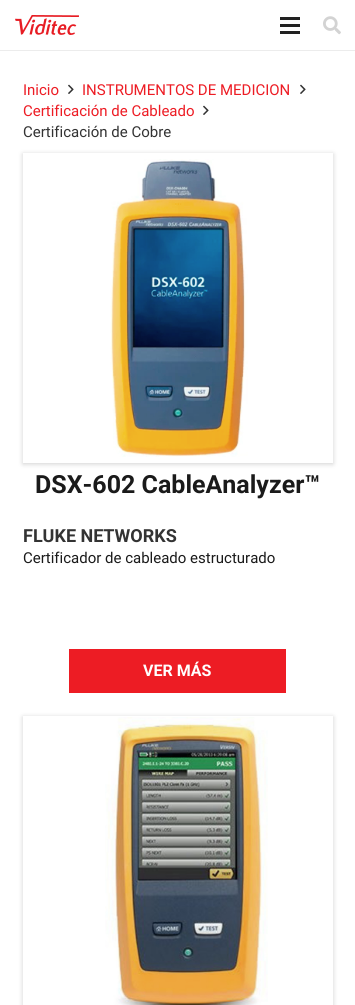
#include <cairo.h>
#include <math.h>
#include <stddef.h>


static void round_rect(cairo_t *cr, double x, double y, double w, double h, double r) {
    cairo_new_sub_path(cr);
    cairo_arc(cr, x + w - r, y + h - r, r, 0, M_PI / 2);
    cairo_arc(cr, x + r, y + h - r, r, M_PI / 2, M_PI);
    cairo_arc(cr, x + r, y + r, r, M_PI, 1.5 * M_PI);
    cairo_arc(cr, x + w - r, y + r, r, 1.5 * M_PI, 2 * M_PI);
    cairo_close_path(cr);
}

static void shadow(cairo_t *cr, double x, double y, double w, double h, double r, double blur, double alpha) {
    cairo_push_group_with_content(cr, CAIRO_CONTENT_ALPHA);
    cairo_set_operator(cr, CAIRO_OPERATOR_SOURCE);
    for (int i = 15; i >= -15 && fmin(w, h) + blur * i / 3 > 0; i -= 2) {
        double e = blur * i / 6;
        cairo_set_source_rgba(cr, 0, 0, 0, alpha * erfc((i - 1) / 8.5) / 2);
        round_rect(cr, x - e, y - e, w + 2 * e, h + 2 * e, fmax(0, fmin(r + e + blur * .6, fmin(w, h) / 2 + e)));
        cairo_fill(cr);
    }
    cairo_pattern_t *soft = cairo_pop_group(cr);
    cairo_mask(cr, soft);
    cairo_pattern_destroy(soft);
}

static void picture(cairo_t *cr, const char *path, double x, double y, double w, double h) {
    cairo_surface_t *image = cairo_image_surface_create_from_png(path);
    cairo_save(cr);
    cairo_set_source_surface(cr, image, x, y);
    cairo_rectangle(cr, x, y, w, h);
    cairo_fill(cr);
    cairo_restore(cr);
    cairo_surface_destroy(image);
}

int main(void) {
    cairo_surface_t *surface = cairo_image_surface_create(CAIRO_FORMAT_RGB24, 355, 1005);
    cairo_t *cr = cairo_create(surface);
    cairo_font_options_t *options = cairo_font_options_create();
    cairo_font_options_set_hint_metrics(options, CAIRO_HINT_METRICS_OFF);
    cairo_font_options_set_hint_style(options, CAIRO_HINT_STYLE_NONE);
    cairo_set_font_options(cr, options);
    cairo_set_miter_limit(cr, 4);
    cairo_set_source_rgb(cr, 1, 1, 1);
    cairo_paint(cr);
    cairo_set_source_rgb(cr, 0.922, 0.922, 0.922);
    cairo_rectangle(cr, 0, 50, 355, 1);
    cairo_fill(cr);
    picture(cr, "img1.png", 15, 15, 64, 20);
    cairo_set_source_rgb(cr, 0.129, 0.129, 0.129);
    cairo_rectangle(cr, 280, 24, 20, 3);
    cairo_fill(cr);
    cairo_rectangle(cr, 280, 17, 20, 3);
    cairo_fill(cr);
    cairo_rectangle(cr, 280, 31, 20, 3);
    cairo_fill(cr);
    picture(cr, "img2.png", 323, 16, 18, 19);
    cairo_select_font_face(cr, "Roboto", CAIRO_FONT_SLANT_NORMAL, CAIRO_FONT_WEIGHT_NORMAL);
    cairo_set_font_size(cr, 15);
    cairo_set_source_rgb(cr, 0.929, 0.11, 0.141);
    cairo_move_to(cr, 23, 95);
    cairo_show_text(cr, "Inicio");
    picture(cr, "img3.png", 68, 84, 6, 10);
    cairo_move_to(cr, 82, 95);
    cairo_show_text(cr, "INSTRUMENTOS DE MEDICION");
    picture(cr, "img3.png", 300, 84, 6, 10);
    cairo_move_to(cr, 23, 116);
    cairo_show_text(cr, "Certificación de Cableado");
    picture(cr, "img3.png", 203, 105, 6, 10);
    cairo_set_source_rgb(cr, 0.2, 0.2, 0.2);
    cairo_move_to(cr, 23, 137);
    cairo_show_text(cr, "Certificación de Cobre");
    cairo_save(cr);
    cairo_set_fill_rule(cr, CAIRO_FILL_RULE_EVEN_ODD);
    cairo_new_path(cr);
    cairo_move_to(cr, 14, 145);
    cairo_line_to(cr, 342, 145);
    cairo_line_to(cr, 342, 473);
    cairo_line_to(cr, 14, 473);
    cairo_close_path(cr);
    cairo_move_to(cr, 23, 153);
    cairo_line_to(cr, 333, 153);
    cairo_line_to(cr, 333, 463);
    cairo_line_to(cr, 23, 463);
    cairo_close_path(cr);
    cairo_clip(cr);
    cairo_set_source_rgb(cr, 0.392, 0.392, 0.392);
    shadow(cr, 23, 154, 310, 310, 0, 2.5, 0.3);
    cairo_restore(cr);
    picture(cr, "img4.png", 110, 159, 138, 298);
    cairo_select_font_face(cr, "Roboto", CAIRO_FONT_SLANT_NORMAL, CAIRO_FONT_WEIGHT_BOLD);
    cairo_set_font_size(cr, 25);
    cairo_set_source_rgb(cr, 0.102, 0.102, 0.102);
    cairo_move_to(cr, 35, 493);
    cairo_show_text(cr, "DSX-602 CableAnalyzer™");
    cairo_set_font_size(cr, 18);
    cairo_set_source_rgb(cr, 0.2, 0.2, 0.2);
    cairo_move_to(cr, 23, 542);
    cairo_show_text(cr, "FLUKE NETWORKS");
    cairo_select_font_face(cr, "Roboto", CAIRO_FONT_SLANT_NORMAL, CAIRO_FONT_WEIGHT_NORMAL);
    cairo_set_font_size(cr, 15);
    cairo_set_source_rgb(cr, 0.102, 0.102, 0.102);
    cairo_move_to(cr, 23, 563);
    cairo_show_text(cr, "Certificador de cableado estructurado");
    cairo_set_source_rgb(cr, 0.929, 0.11, 0.141);
    cairo_rectangle(cr, 69, 649, 217, 44);
    cairo_fill(cr);
    cairo_select_font_face(cr, "Roboto", CAIRO_FONT_SLANT_NORMAL, CAIRO_FONT_WEIGHT_BOLD);
    cairo_set_font_size(cr, 16);
    cairo_set_source_rgb(cr, 1, 1, 1);
    cairo_move_to(cr, 143, 676);
    cairo_show_text(cr, "VER MÁS");
    cairo_save(cr);
    cairo_set_fill_rule(cr, CAIRO_FILL_RULE_EVEN_ODD);
    cairo_new_path(cr);
    cairo_move_to(cr, 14, 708);
    cairo_line_to(cr, 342, 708);
    cairo_line_to(cr, 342, 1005);
    cairo_line_to(cr, 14, 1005);
    cairo_close_path(cr);
    cairo_move_to(cr, 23, 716);
    cairo_line_to(cr, 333, 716);
    cairo_line_to(cr, 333, 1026);
    cairo_line_to(cr, 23, 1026);
    cairo_close_path(cr);
    cairo_clip(cr);
    cairo_set_source_rgb(cr, 0.392, 0.392, 0.392);
    shadow(cr, 23, 717, 310, 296, 0, 2.5, 0.3);
    cairo_restore(cr);
    picture(cr, "img5.png", 105, 717, 163, 288);
    cairo_surface_write_to_png(surface, "page.png");
    cairo_font_options_destroy(options);
    cairo_destroy(cr);
    cairo_surface_destroy(surface);
    return 0;
}
